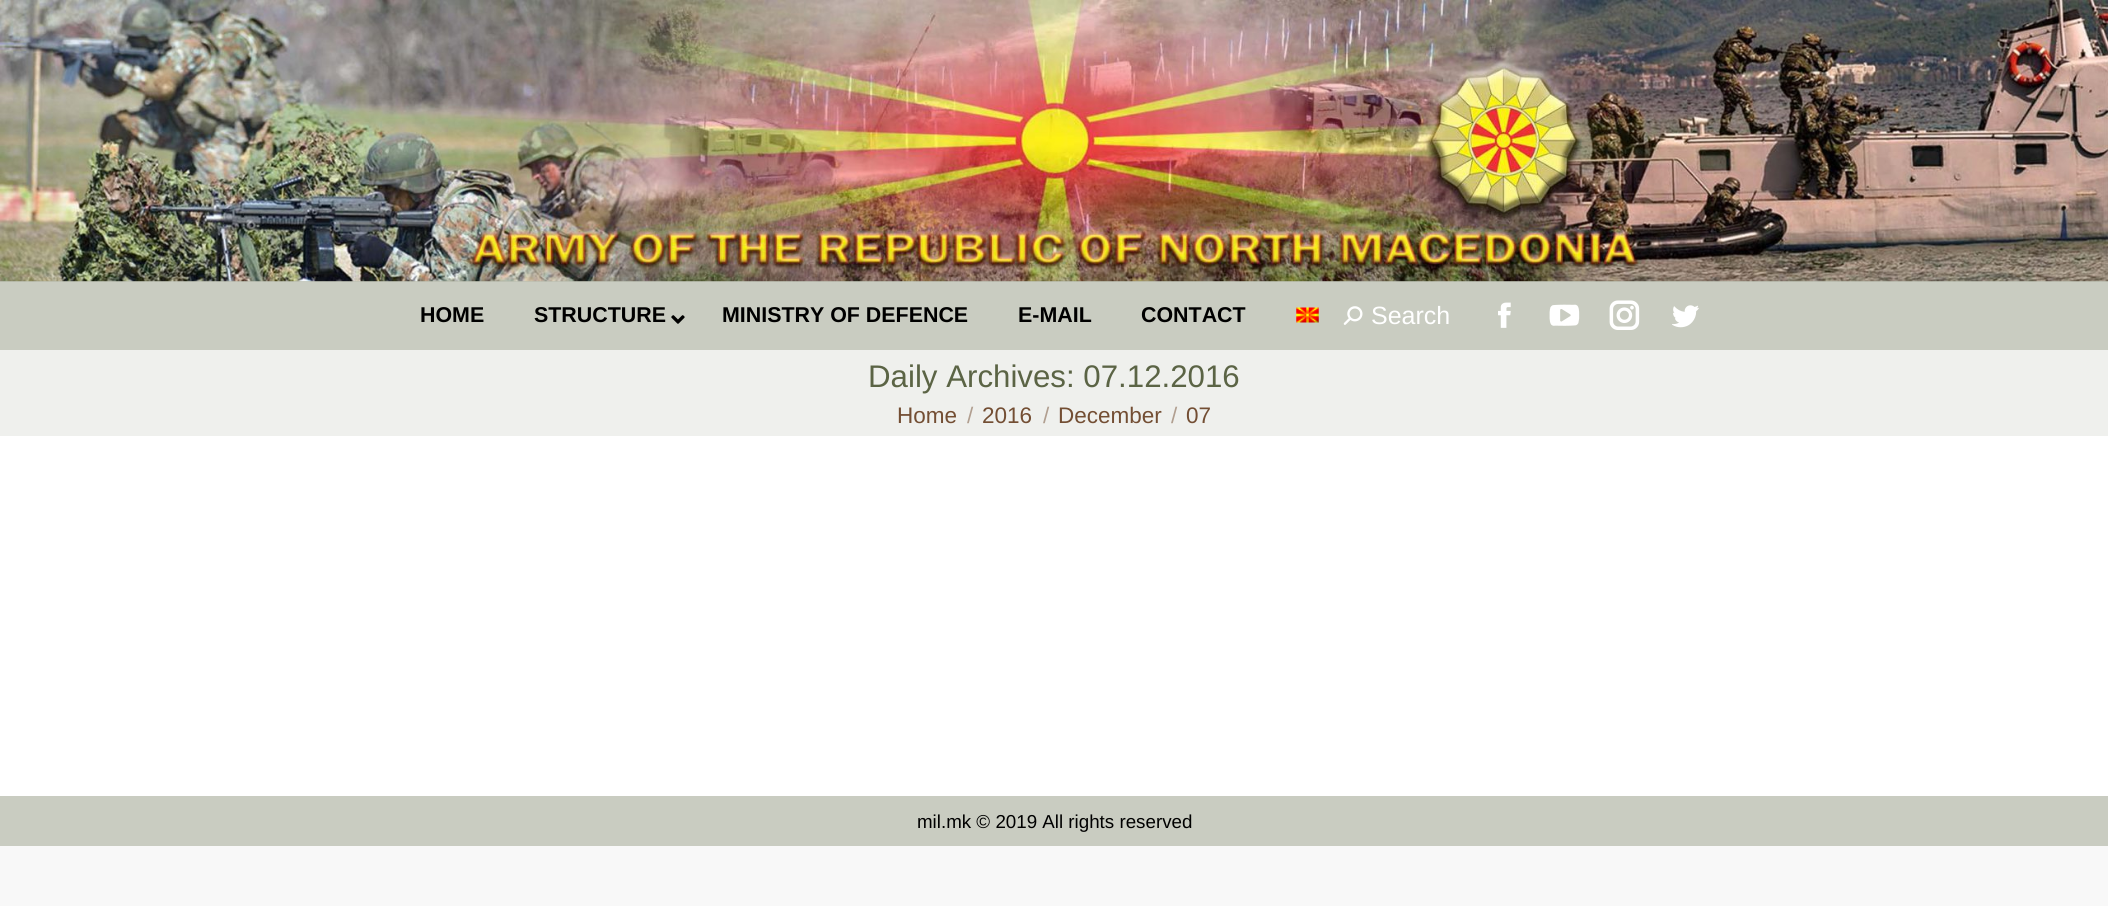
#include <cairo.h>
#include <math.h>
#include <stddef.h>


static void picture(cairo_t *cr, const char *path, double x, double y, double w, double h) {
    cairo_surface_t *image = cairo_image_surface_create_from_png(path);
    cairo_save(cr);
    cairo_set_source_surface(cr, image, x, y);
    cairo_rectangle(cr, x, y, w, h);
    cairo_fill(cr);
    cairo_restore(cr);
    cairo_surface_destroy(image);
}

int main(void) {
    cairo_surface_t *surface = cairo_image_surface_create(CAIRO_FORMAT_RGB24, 2108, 906);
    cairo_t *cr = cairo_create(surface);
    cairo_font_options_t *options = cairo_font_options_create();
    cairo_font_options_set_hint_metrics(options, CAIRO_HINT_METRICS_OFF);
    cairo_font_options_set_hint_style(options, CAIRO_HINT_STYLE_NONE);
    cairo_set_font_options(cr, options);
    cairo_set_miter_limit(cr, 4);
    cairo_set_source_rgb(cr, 0.969, 0.969, 0.969);
    cairo_paint(cr);
    cairo_set_source_rgb(cr, 1, 1, 1);
    cairo_rectangle(cr, 0, 281, 2108, 515);
    cairo_fill(cr);
    picture(cr, "img1.png", 0, 0, 2108, 282);
    cairo_set_source_rgba(cr, 0.357, 0.392, 0.271, 0.33);
    cairo_rectangle(cr, 0, 281, 2108, 69);
    cairo_fill(cr);
    cairo_select_font_face(cr, "Liberation Sans", CAIRO_FONT_SLANT_NORMAL, CAIRO_FONT_WEIGHT_BOLD);
    cairo_set_font_size(cr, 21.4);
    cairo_set_source_rgb(cr, 0, 0, 0);
    cairo_move_to(cr, 420, 322);
    cairo_show_text(cr, "HOME");
    cairo_move_to(cr, 534, 322);
    cairo_show_text(cr, "STRUCTURE");
    picture(cr, "img2.png", 671, 315, 14, 9);
    cairo_move_to(cr, 722, 322);
    cairo_show_text(cr, "MINISTRY OF DEFENCE");
    cairo_move_to(cr, 1018, 322);
    cairo_show_text(cr, "E-MAIL");
    cairo_move_to(cr, 1141, 322);
    cairo_show_text(cr, "CONTACT");
    picture(cr, "img3.png", 1296, 307, 23, 16);
    picture(cr, "img4.png", 1343, 306, 20, 19);
    cairo_select_font_face(cr, "Liberation Sans", CAIRO_FONT_SLANT_NORMAL, CAIRO_FONT_WEIGHT_NORMAL);
    cairo_set_font_size(cr, 25);
    cairo_set_source_rgb(cr, 1, 1, 1);
    cairo_move_to(cr, 1371, 324);
    cairo_show_text(cr, "Search");
    picture(cr, "img5.png", 1498, 302, 13, 26);
    picture(cr, "img6.png", 1549, 304, 31, 22);
    picture(cr, "img7.png", 1609, 300, 31, 30);
    picture(cr, "img8.png", 1672, 305, 27, 23);
    cairo_set_source_rgb(cr, 0.937, 0.941, 0.929);
    cairo_rectangle(cr, 0, 350, 2108, 86);
    cairo_fill(cr);
    cairo_set_font_size(cr, 31.25);
    cairo_set_source_rgb(cr, 0.357, 0.392, 0.271);
    cairo_move_to(cr, 868, 387);
    cairo_show_text(cr, "Daily Archives: 07.12.2016");
    cairo_set_font_size(cr, 22.5);
    cairo_set_source_rgb(cr, 0.451, 0.306, 0.2);
    cairo_move_to(cr, 897, 423);
    cairo_show_text(cr, "Home");
    cairo_set_source_rgb(cr, 0.694, 0.624, 0.565);
    cairo_move_to(cr, 967, 423);
    cairo_show_text(cr, "/");
    cairo_set_source_rgb(cr, 0.451, 0.306, 0.2);
    cairo_move_to(cr, 982, 423);
    cairo_show_text(cr, "2016");
    cairo_set_source_rgb(cr, 0.694, 0.624, 0.565);
    cairo_move_to(cr, 1043, 423);
    cairo_show_text(cr, "/");
    cairo_set_source_rgb(cr, 0.451, 0.306, 0.2);
    cairo_move_to(cr, 1058, 423);
    cairo_show_text(cr, "December");
    cairo_set_source_rgb(cr, 0.694, 0.624, 0.565);
    cairo_move_to(cr, 1171, 423);
    cairo_show_text(cr, "/");
    cairo_set_source_rgb(cr, 0.451, 0.306, 0.2);
    cairo_move_to(cr, 1186, 423);
    cairo_show_text(cr, "07");
    cairo_set_source_rgb(cr, 0.788, 0.8, 0.757);
    cairo_rectangle(cr, 0, 796, 2108, 50);
    cairo_fill(cr);
    cairo_set_font_size(cr, 18.75);
    cairo_set_source_rgb(cr, 0, 0, 0);
    cairo_move_to(cr, 917, 828);
    cairo_show_text(cr, "mil.mk © 2019 All rights reserved");
    cairo_surface_write_to_png(surface, "page.png");
    cairo_font_options_destroy(options);
    cairo_destroy(cr);
    cairo_surface_destroy(surface);
    return 0;
}
